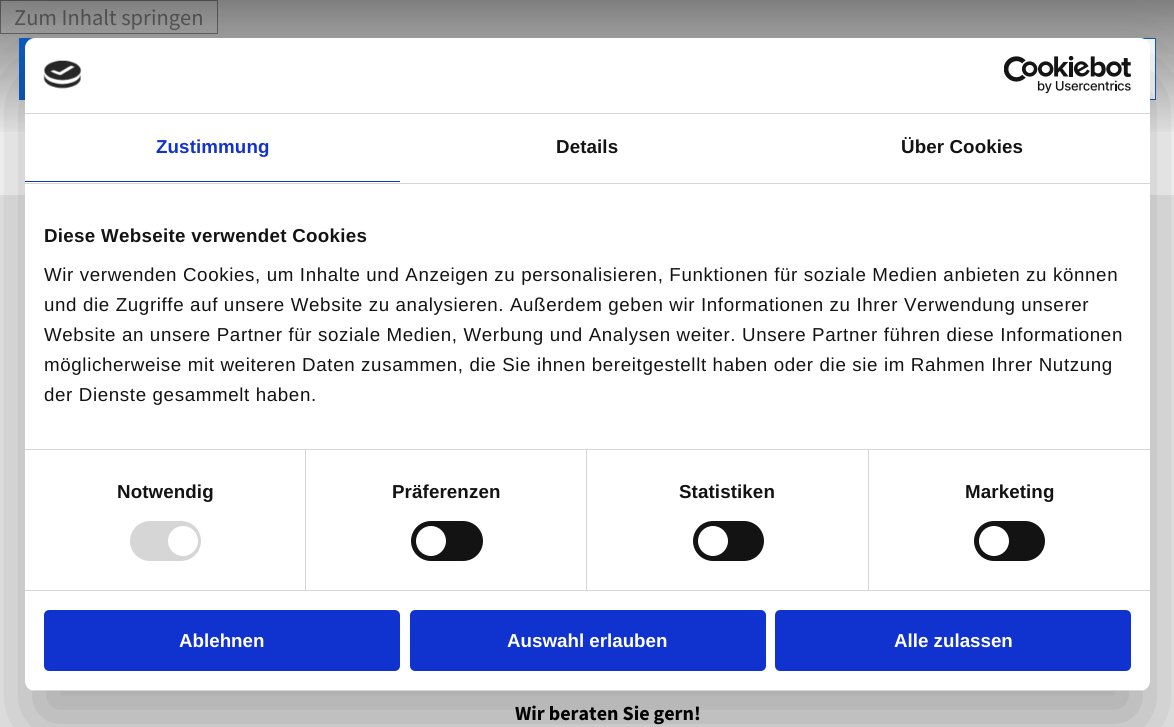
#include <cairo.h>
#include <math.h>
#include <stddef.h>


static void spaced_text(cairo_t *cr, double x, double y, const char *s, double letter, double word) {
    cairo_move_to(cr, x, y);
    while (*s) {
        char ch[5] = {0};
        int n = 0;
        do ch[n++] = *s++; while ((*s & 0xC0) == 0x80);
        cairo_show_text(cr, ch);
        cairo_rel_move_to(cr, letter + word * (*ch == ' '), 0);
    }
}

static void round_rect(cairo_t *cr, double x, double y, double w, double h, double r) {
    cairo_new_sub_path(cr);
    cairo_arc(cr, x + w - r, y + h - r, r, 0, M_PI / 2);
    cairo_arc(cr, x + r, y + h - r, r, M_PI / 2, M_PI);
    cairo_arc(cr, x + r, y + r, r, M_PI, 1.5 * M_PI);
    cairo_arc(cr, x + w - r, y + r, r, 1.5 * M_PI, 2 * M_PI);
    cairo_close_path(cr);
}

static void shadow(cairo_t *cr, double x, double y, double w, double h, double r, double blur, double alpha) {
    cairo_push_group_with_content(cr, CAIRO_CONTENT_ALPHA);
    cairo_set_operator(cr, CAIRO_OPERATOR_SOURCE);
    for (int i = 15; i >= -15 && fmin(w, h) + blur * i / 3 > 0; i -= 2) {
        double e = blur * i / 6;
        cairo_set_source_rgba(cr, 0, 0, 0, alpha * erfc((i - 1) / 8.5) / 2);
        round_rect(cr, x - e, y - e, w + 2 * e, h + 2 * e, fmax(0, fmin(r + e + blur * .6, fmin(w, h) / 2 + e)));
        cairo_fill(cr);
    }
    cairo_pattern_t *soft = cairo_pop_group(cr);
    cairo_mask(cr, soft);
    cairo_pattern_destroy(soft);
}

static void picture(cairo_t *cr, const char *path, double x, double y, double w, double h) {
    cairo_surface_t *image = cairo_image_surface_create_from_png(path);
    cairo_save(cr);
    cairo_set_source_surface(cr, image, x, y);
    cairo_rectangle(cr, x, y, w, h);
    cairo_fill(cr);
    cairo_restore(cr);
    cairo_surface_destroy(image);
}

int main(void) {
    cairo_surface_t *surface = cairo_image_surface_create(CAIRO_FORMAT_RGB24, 1174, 727);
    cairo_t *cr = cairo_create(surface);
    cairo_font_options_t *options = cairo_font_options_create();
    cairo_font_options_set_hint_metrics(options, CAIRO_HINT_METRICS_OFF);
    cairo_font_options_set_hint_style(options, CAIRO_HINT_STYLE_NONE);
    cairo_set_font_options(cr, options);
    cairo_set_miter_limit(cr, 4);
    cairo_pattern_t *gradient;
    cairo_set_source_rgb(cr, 1, 1, 1);
    cairo_paint(cr);
    cairo_rectangle(cr, 0.5, 0.5, 217, 33);
    cairo_set_source_rgb(cr, 0.6, 0.6, 0.6);
    cairo_set_line_width(cr, 1);
    cairo_stroke(cr);
    cairo_select_font_face(cr, "Source Sans Pro", CAIRO_FONT_SLANT_NORMAL, CAIRO_FONT_WEIGHT_NORMAL);
    cairo_set_font_size(cr, 22.5);
    cairo_set_source_rgb(cr, 0.565, 0.565, 0.565);
    cairo_move_to(cr, 14, 25);
    cairo_show_text(cr, "Zum Inhalt springen");
    gradient = cairo_pattern_create_linear(588, 0, 588, 138);
    cairo_pattern_add_color_stop_rgba(gradient, 0, 0, 0, 0, 0.5);
    cairo_pattern_add_color_stop_rgba(gradient, 1, 0, 0, 0, 0);
    cairo_set_source(cr, gradient);
    cairo_pattern_destroy(gradient);
    cairo_rectangle(cr, 0, 0, 1174, 132);
    cairo_fill(cr);
    cairo_set_source_rgb(cr, 0.047, 0.369, 0.765);
    cairo_rectangle(cr, 19, 38, 16, 62);
    cairo_fill(cr);
    cairo_set_source_rgb(cr, 1, 1, 1);
    cairo_rectangle(cr, 1144, 39, 11, 60);
    cairo_fill(cr);
    cairo_rectangle(cr, 588.5, 38.5, 567, 61);
    cairo_set_source_rgb(cr, 0.047, 0.369, 0.765);
    cairo_stroke(cr);
    cairo_set_source_rgb(cr, 0.929, 0.929, 0.929);
    cairo_rectangle(cr, 0, 195, 1174, 532);
    cairo_fill(cr);
    cairo_set_source_rgb(cr, 0, 0, 0);
    shadow(cr, 25, 78, 1125, 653, 10, 42.5, 0.3);
    cairo_set_source_rgb(cr, 1, 1, 1);
    round_rect(cr, 25, 38, 1125, 653, 10);
    cairo_fill(cr);
    cairo_set_source_rgb(cr, 0.839, 0.839, 0.839);
    cairo_rectangle(cr, 25, 113, 1125, 1);
    cairo_fill(cr);
    picture(cr, "img1.png", 43, 60, 39, 29);
    picture(cr, "img2.png", 1004, 56, 127, 38);
    cairo_rectangle(cr, 25, 183, 1125, 1);
    cairo_fill(cr);
    cairo_set_source_rgb(cr, 0.063, 0.196, 0.812);
    cairo_rectangle(cr, 25, 181, 375, 1);
    cairo_fill(cr);
    cairo_select_font_face(cr, "Liberation Sans", CAIRO_FONT_SLANT_NORMAL, CAIRO_FONT_WEIGHT_BOLD);
    cairo_set_font_size(cr, 18.75);
    spaced_text(cr, 156, 153, "Zustimmung", 0.1, 0);
    cairo_set_source_rgb(cr, 0.078, 0.078, 0.078);
    spaced_text(cr, 556, 153, "Details", 0.1, 0);
    spaced_text(cr, 901, 153, "Über Cookies", 0.1, 0);
    cairo_set_source_rgb(cr, 0.839, 0.839, 0.839);
    cairo_rectangle(cr, 25, 449, 1125, 1);
    cairo_fill(cr);
    cairo_set_source_rgb(cr, 0.078, 0.078, 0.078);
    spaced_text(cr, 44, 242, "Diese Webseite verwendet Cookies", 0.3, 0);
    cairo_select_font_face(cr, "Liberation Sans", CAIRO_FONT_SLANT_NORMAL, CAIRO_FONT_WEIGHT_NORMAL);
    spaced_text(cr, 44, 281, "Wir verwenden Cookies, um Inhalte und Anzeigen zu personalisieren, Funktionen für soziale Medien anbieten zu können", 0.62, 0);
    spaced_text(cr, 44, 311, "und die Zugriffe auf unsere Website zu analysieren. Außerdem geben wir Informationen zu Ihrer Verwendung unserer", 0.62, 0);
    spaced_text(cr, 44, 341, "Website an unsere Partner für soziale Medien, Werbung und Analysen weiter. Unsere Partner führen diese Informationen", 0.62, 0);
    spaced_text(cr, 44, 371, "möglicherweise mit weiteren Daten zusammen, die Sie ihnen bereitgestellt haben oder die sie im Rahmen Ihrer Nutzung", 0.62, 0);
    spaced_text(cr, 44, 401, "der Dienste gesammelt haben.", 0.62, 0);
    cairo_set_source_rgb(cr, 0.839, 0.839, 0.839);
    cairo_rectangle(cr, 25, 590, 1125, 1);
    cairo_fill(cr);
    cairo_rectangle(cr, 305, 450, 1, 140);
    cairo_fill(cr);
    cairo_select_font_face(cr, "Liberation Sans", CAIRO_FONT_SLANT_NORMAL, CAIRO_FONT_WEIGHT_BOLD);
    cairo_set_source_rgb(cr, 0.078, 0.078, 0.078);
    spaced_text(cr, 117, 498, "Notwendig", 0.1, 0);
    cairo_set_source_rgb(cr, 0.839, 0.839, 0.839);
    round_rect(cr, 130, 521, 71, 40, 20);
    cairo_fill(cr);
    cairo_set_source_rgb(cr, 1, 1, 1);
    cairo_arc(cr, 183, 541, 15, 0, 2 * M_PI);
    cairo_fill(cr);
    cairo_set_source_rgb(cr, 0.839, 0.839, 0.839);
    cairo_rectangle(cr, 586, 450, 1, 140);
    cairo_fill(cr);
    cairo_set_source_rgb(cr, 0.078, 0.078, 0.078);
    spaced_text(cr, 392, 498, "Präferenzen", 0.1, 0);
    round_rect(cr, 411, 521, 72, 40, 20);
    cairo_fill(cr);
    cairo_set_source_rgb(cr, 1, 1, 1);
    cairo_arc(cr, 431, 541, 15, 0, 2 * M_PI);
    cairo_fill(cr);
    cairo_set_source_rgb(cr, 0.839, 0.839, 0.839);
    cairo_rectangle(cr, 868, 450, 1, 140);
    cairo_fill(cr);
    cairo_set_source_rgb(cr, 0.078, 0.078, 0.078);
    spaced_text(cr, 679, 498, "Statistiken", 0.1, 0);
    round_rect(cr, 693, 521, 71, 40, 20);
    cairo_fill(cr);
    cairo_set_source_rgb(cr, 1, 1, 1);
    cairo_arc(cr, 713, 541, 15, 0, 2 * M_PI);
    cairo_fill(cr);
    cairo_set_source_rgb(cr, 0.078, 0.078, 0.078);
    spaced_text(cr, 965, 498, "Marketing", 0.1, 0);
    round_rect(cr, 974, 521, 71, 40, 20);
    cairo_fill(cr);
    cairo_set_source_rgb(cr, 1, 1, 1);
    cairo_arc(cr, 994, 541, 15, 0, 2 * M_PI);
    cairo_fill(cr);
    cairo_save(cr);
    round_rect(cr, 25, 38, 1125, 653, 10);
    cairo_clip(cr);
    cairo_set_source_rgb(cr, 0.839, 0.839, 0.839);
    cairo_rectangle(cr, 25, 690, 1125, 1);
    cairo_fill(cr);
    cairo_restore(cr);
    cairo_set_source_rgb(cr, 0.063, 0.196, 0.812);
    round_rect(cr, 45.5, 611.5, 353, 58, 3.5);
    cairo_fill_preserve(cr);
    cairo_set_line_width(cr, 3);
    cairo_stroke(cr);
    cairo_set_source_rgb(cr, 1, 1, 1);
    cairo_move_to(cr, 179, 647);
    cairo_show_text(cr, "Ablehnen");
    cairo_set_source_rgb(cr, 0.063, 0.196, 0.812);
    round_rect(cr, 411.5, 611.5, 353, 58, 3.5);
    cairo_fill_preserve(cr);
    cairo_stroke(cr);
    cairo_set_source_rgb(cr, 1, 1, 1);
    cairo_move_to(cr, 507, 647);
    cairo_show_text(cr, "Auswahl erlauben");
    cairo_set_source_rgb(cr, 0.063, 0.196, 0.812);
    round_rect(cr, 776.5, 611.5, 353, 58, 3.5);
    cairo_fill_preserve(cr);
    cairo_stroke(cr);
    cairo_set_source_rgb(cr, 1, 1, 1);
    cairo_move_to(cr, 894, 647);
    cairo_show_text(cr, "Alle zulassen");
    cairo_select_font_face(cr, "Source Sans Pro", CAIRO_FONT_SLANT_NORMAL, CAIRO_FONT_WEIGHT_BOLD);
    cairo_set_font_size(cr, 20);
    cairo_set_source_rgb(cr, 0.008, 0.008, 0.008);
    cairo_move_to(cr, 515, 720);
    cairo_show_text(cr, "Wir beraten Sie gern!");
    cairo_surface_write_to_png(surface, "page.png");
    cairo_font_options_destroy(options);
    cairo_destroy(cr);
    cairo_surface_destroy(surface);
    return 0;
}
